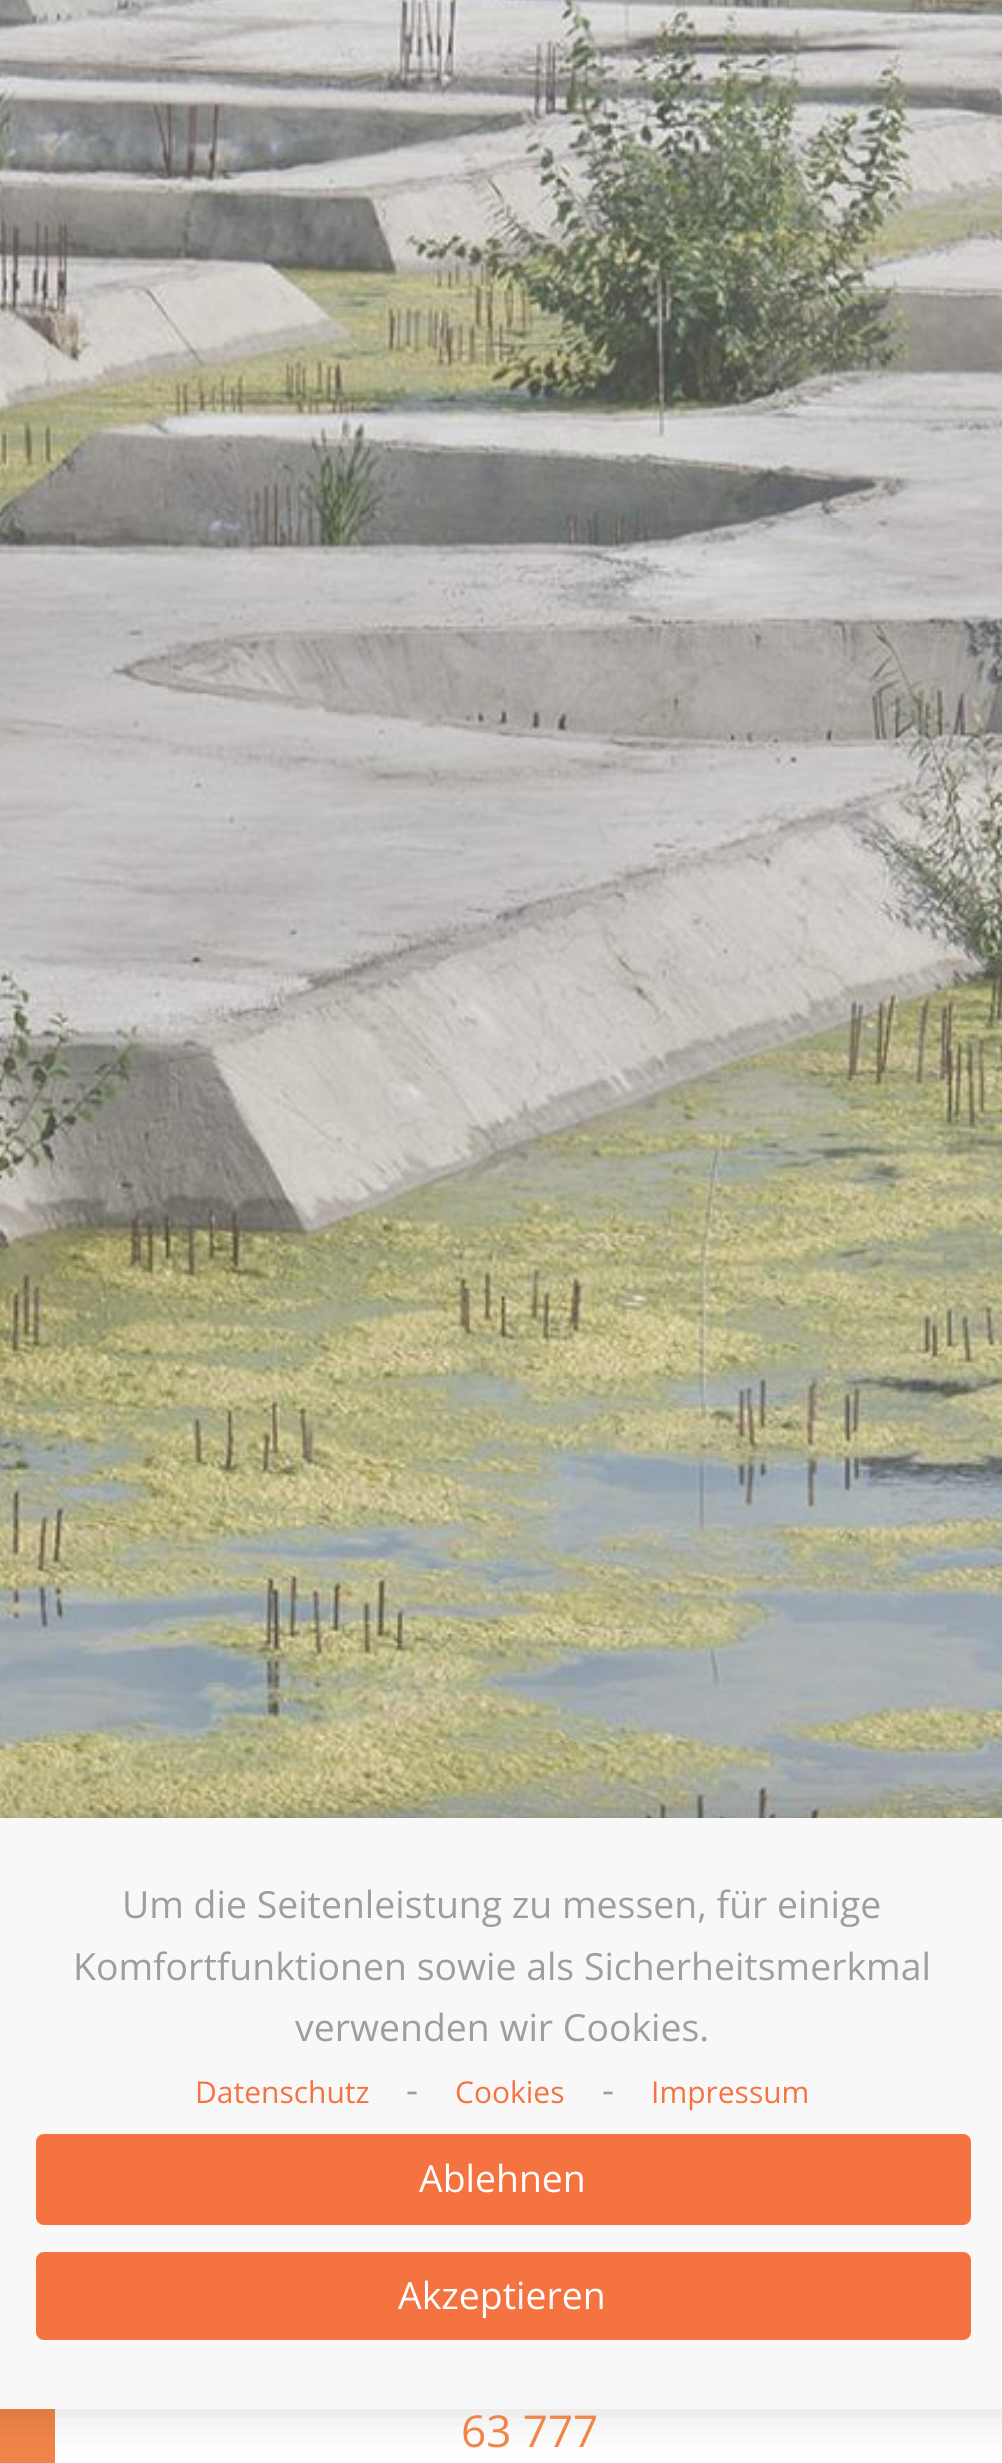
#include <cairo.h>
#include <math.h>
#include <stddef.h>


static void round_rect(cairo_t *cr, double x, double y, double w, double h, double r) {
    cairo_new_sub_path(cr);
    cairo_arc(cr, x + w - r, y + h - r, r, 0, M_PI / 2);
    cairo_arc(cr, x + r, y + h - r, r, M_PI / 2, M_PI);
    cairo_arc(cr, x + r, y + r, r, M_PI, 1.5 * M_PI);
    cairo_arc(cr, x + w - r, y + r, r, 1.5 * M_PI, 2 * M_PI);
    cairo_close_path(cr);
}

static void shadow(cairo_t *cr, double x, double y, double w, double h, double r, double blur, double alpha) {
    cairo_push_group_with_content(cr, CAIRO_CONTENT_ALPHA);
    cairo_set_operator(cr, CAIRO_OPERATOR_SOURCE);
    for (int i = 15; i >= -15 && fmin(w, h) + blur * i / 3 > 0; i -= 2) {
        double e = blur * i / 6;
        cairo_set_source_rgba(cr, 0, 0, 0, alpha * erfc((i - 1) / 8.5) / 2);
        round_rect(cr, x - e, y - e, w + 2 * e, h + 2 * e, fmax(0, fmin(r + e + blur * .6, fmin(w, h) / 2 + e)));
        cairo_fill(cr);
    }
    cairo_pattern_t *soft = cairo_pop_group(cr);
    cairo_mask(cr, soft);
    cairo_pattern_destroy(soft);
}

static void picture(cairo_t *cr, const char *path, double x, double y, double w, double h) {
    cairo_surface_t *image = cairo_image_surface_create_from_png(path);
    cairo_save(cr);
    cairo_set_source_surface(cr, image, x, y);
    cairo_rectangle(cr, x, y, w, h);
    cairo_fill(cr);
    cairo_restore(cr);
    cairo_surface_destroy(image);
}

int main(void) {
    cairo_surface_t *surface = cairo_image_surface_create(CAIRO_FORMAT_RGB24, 1002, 2463);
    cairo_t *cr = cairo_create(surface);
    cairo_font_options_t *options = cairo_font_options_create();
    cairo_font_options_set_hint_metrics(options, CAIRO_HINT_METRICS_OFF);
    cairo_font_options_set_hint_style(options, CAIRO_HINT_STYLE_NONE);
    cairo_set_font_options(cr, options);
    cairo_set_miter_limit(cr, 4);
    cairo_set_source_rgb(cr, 1, 1, 1);
    cairo_paint(cr);
    picture(cr, "img1.png", 0, 0, 1002, 1818);
    cairo_set_source_rgb(cr, 0.945, 0.522, 0.286);
    cairo_rectangle(cr, 0, 2409, 55, 54);
    cairo_fill(cr);
    cairo_set_source_rgb(cr, 0, 0, 0);
    shadow(cr, -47, 1812, 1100, 592, 0, 27.5, 0.18);
    cairo_set_source_rgb(cr, 0.969, 0.969, 0.969);
    cairo_rectangle(cr, 0, 1818, 1002, 591);
    cairo_fill(cr);
    cairo_select_font_face(cr, "Open Sans", CAIRO_FONT_SLANT_NORMAL, CAIRO_FONT_WEIGHT_NORMAL);
    cairo_set_font_size(cr, 37.4);
    cairo_set_source_rgb(cr, 0.62, 0.62, 0.62);
    cairo_move_to(cr, 122, 1918);
    cairo_show_text(cr, "Um die Seitenleistung zu messen, für einige");
    cairo_move_to(cr, 73, 1980);
    cairo_show_text(cr, "Komfortfunktionen sowie als Sicherheitsmerkmal");
    cairo_move_to(cr, 295, 2041);
    cairo_show_text(cr, "verwenden wir Cookies.");
    cairo_set_font_size(cr, 30);
    cairo_set_source_rgb(cr, 0.957, 0.451, 0.251);
    cairo_move_to(cr, 195, 2103);
    cairo_show_text(cr, "Datenschutz");
    cairo_set_font_size(cr, 37.4);
    cairo_set_source_rgb(cr, 0.62, 0.62, 0.62);
    cairo_move_to(cr, 406, 2103);
    cairo_show_text(cr, "-");
    cairo_set_font_size(cr, 30);
    cairo_set_source_rgb(cr, 0.957, 0.451, 0.251);
    cairo_move_to(cr, 455, 2103);
    cairo_show_text(cr, "Cookies");
    cairo_set_font_size(cr, 37.4);
    cairo_set_source_rgb(cr, 0.62, 0.62, 0.62);
    cairo_move_to(cr, 602, 2103);
    cairo_show_text(cr, "-");
    cairo_set_font_size(cr, 30);
    cairo_set_source_rgb(cr, 0.957, 0.451, 0.251);
    cairo_move_to(cr, 651, 2103);
    cairo_show_text(cr, "Impressum");
    round_rect(cr, 36, 2134, 935, 91, 8);
    cairo_fill(cr);
    cairo_set_font_size(cr, 37.4);
    cairo_set_source_rgb(cr, 1, 1, 1);
    cairo_move_to(cr, 419, 2192);
    cairo_show_text(cr, "Ablehnen");
    cairo_set_source_rgb(cr, 0.957, 0.451, 0.251);
    round_rect(cr, 36, 2252, 935, 88, 8);
    cairo_fill(cr);
    cairo_set_source_rgb(cr, 1, 1, 1);
    cairo_move_to(cr, 398, 2309);
    cairo_show_text(cr, "Akzeptieren");
    cairo_set_font_size(cr, 44);
    cairo_set_source_rgb(cr, 0.945, 0.522, 0.286);
    cairo_move_to(cr, 461, 2447);
    cairo_show_text(cr, "63 777");
    cairo_surface_write_to_png(surface, "page.png");
    cairo_font_options_destroy(options);
    cairo_destroy(cr);
    cairo_surface_destroy(surface);
    return 0;
}
